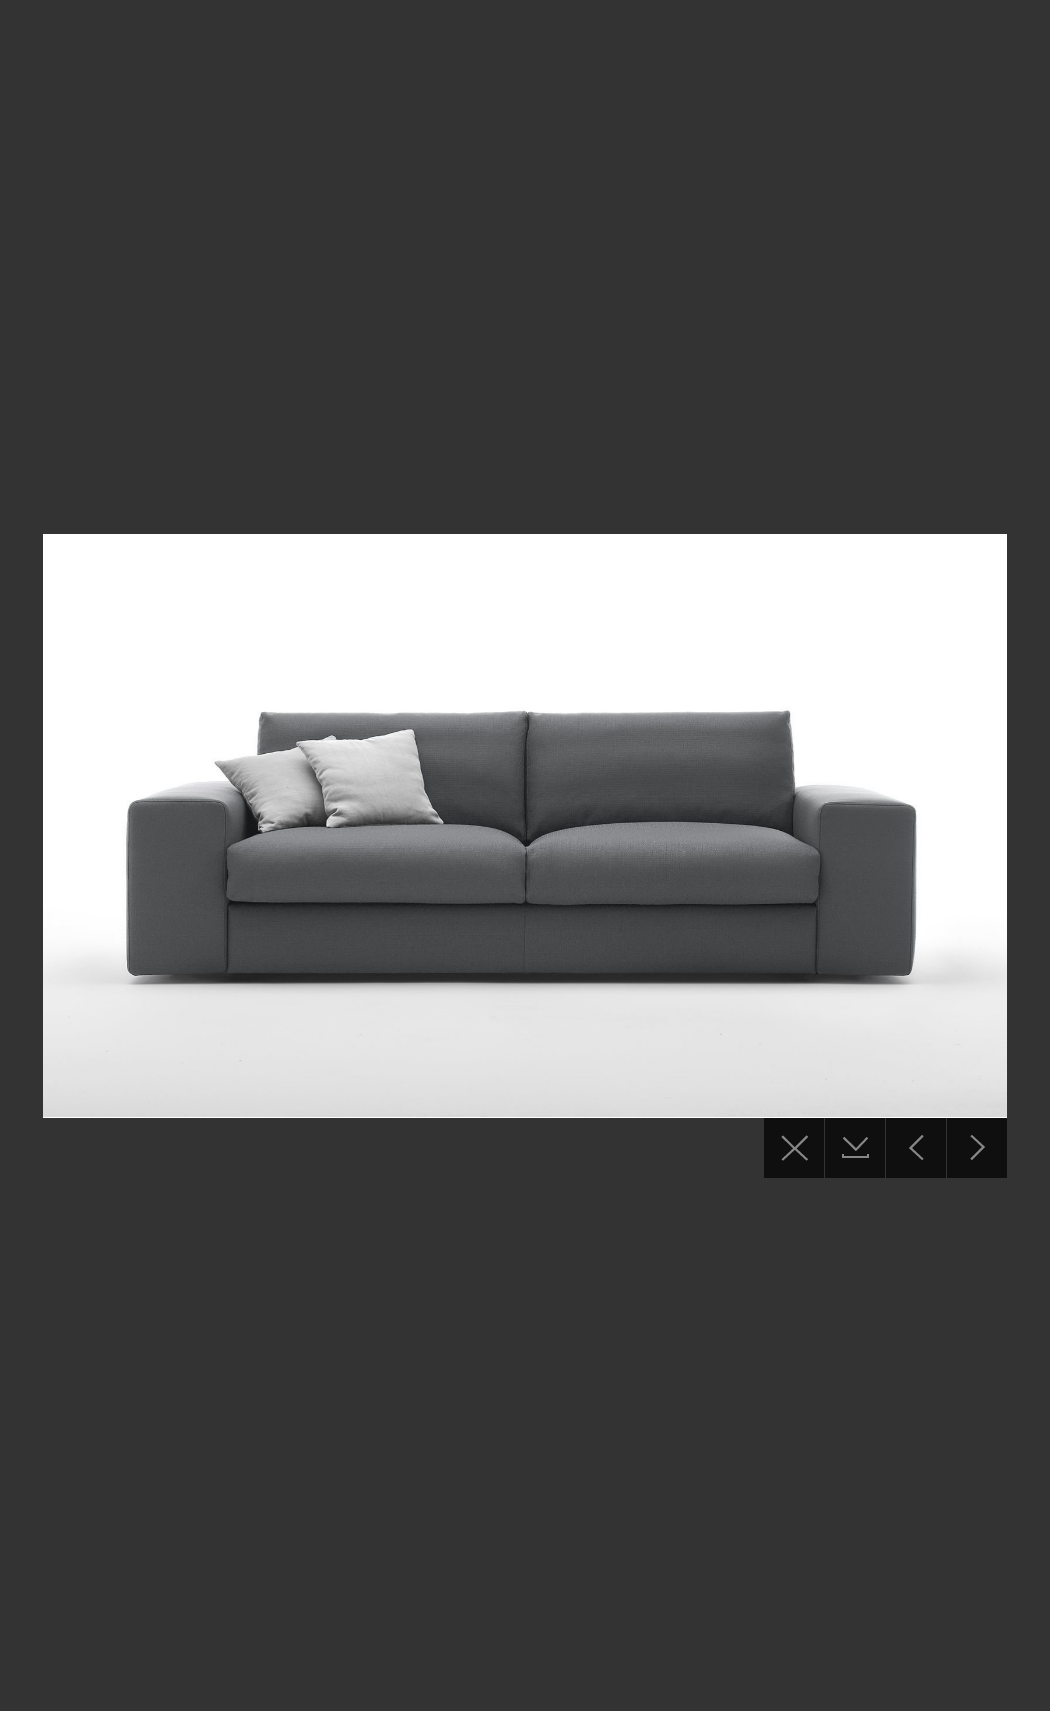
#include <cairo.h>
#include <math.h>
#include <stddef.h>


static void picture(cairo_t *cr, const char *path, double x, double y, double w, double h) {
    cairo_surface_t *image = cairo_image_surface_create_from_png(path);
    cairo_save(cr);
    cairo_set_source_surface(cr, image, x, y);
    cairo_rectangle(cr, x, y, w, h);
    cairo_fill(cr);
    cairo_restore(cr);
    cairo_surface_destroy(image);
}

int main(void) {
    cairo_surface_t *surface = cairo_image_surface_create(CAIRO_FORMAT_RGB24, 1050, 1711);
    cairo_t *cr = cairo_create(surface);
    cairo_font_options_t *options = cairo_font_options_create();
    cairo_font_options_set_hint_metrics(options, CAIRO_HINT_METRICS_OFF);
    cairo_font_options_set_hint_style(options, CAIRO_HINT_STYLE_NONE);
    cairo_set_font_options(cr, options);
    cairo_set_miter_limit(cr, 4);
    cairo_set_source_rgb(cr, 0.2, 0.2, 0.2);
    cairo_paint(cr);
    cairo_set_source_rgb(cr, 1, 1, 1);
    cairo_rectangle(cr, 43, 534, 964, 584);
    cairo_fill(cr);
    picture(cr, "img1.png", 43, 707, 964, 410);
    cairo_set_source_rgb(cr, 0.059, 0.059, 0.059);
    cairo_rectangle(cr, 764, 1118, 60, 60);
    cairo_fill(cr);
    picture(cr, "img2.png", 781, 1135, 27, 26);
    cairo_rectangle(cr, 825, 1118, 60, 60);
    cairo_fill(cr);
    picture(cr, "img3.png", 842, 1137, 27, 21);
    cairo_rectangle(cr, 886, 1118, 60, 60);
    cairo_fill(cr);
    picture(cr, "img4.png", 909, 1135, 15, 25);
    cairo_rectangle(cr, 947, 1118, 60, 60);
    cairo_fill(cr);
    picture(cr, "img5.png", 970, 1135, 15, 25);
    cairo_surface_write_to_png(surface, "page.png");
    cairo_font_options_destroy(options);
    cairo_destroy(cr);
    cairo_surface_destroy(surface);
    return 0;
}
